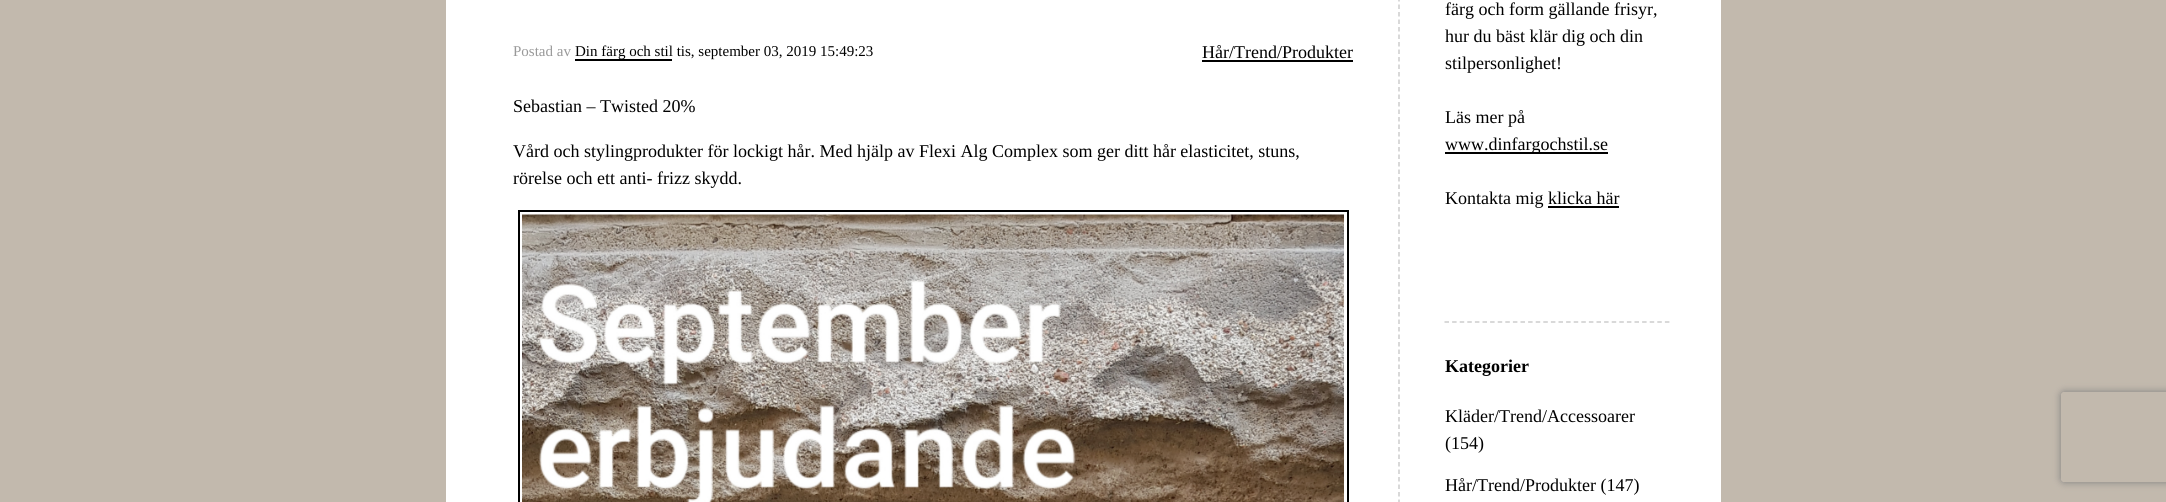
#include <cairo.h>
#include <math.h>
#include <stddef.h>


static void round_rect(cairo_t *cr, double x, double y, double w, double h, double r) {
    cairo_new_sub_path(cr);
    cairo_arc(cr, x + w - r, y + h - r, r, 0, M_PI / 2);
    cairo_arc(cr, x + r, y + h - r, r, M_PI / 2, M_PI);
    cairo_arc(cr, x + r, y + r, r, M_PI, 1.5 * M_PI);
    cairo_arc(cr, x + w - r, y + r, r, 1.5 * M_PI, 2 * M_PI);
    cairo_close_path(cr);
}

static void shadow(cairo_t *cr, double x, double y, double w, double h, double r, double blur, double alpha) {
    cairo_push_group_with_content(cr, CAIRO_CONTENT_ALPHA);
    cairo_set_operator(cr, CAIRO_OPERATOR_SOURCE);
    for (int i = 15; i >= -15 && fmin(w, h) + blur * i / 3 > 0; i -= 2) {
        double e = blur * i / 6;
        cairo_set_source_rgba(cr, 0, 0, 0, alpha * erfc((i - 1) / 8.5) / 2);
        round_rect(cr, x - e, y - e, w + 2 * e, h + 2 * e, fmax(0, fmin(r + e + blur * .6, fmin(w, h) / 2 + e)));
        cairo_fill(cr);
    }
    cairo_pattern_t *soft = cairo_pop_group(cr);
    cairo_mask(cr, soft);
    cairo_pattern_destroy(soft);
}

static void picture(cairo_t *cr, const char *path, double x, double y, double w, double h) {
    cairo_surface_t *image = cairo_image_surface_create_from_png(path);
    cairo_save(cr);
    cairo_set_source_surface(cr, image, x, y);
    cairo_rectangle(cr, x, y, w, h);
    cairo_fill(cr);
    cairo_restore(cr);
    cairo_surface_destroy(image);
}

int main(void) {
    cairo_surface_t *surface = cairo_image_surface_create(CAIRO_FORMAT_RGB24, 2166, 502);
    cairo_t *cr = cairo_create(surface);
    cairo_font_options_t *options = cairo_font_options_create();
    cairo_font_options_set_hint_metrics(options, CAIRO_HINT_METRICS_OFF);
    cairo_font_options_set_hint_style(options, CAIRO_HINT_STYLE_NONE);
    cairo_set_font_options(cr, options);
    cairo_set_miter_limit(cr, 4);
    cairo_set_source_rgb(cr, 0.761, 0.725, 0.678);
    cairo_paint(cr);
    cairo_set_source_rgb(cr, 1, 1, 1);
    cairo_rectangle(cr, 446, 0, 1275, 502);
    cairo_fill(cr);
    cairo_select_font_face(cr, "Liberation Serif", CAIRO_FONT_SLANT_NORMAL, CAIRO_FONT_WEIGHT_NORMAL);
    cairo_set_font_size(cr, 15);
    cairo_set_source_rgb(cr, 0.6, 0.6, 0.6);
    cairo_move_to(cr, 513, 56);
    cairo_show_text(cr, "Postad av");
    cairo_set_source_rgb(cr, 0, 0, 0);
    cairo_rectangle(cr, 575, 59, 97, 2);
    cairo_fill(cr);
    cairo_move_to(cr, 575, 56);
    cairo_show_text(cr, "Din färg och stil tis, september 03, 2019 15:49:23");
    cairo_set_font_size(cr, 18);
    cairo_move_to(cr, 1202, 58);
    cairo_show_text(cr, "Hår/Trend/Produkter");
    cairo_rectangle(cr, 1202, 60, 151, 2);
    cairo_fill(cr);
    cairo_move_to(cr, 513, 112);
    cairo_show_text(cr, "Sebastian – Twisted 20%");
    cairo_move_to(cr, 513, 157);
    cairo_show_text(cr, "Vård och stylingprodukter för lockigt hår. Med hjälp av Flexi Alg Complex som ger ditt hår elasticitet, stuns,");
    cairo_move_to(cr, 513, 184);
    cairo_show_text(cr, "rörelse och ett anti- frizz skydd.");
    cairo_rectangle(cr, 519, 211, 829, 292);
    cairo_stroke(cr);
    picture(cr, "img1.png", 522, 214, 822, 288);
    cairo_new_path(cr);
    cairo_move_to(cr, 1399, -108);
    cairo_line_to(cr, 1399, 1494);
    cairo_set_source_rgb(cr, 0.8, 0.8, 0.8);
    cairo_set_line_width(cr, 1.5);
    cairo_set_dash(cr, (double[]){4.5, 3}, 2, 0);
    cairo_stroke(cr);
    cairo_new_path(cr);
    cairo_move_to(cr, 1444.5, 322);
    cairo_line_to(cr, 1669.5, 322);
    cairo_set_dash(cr, (double[]){4.5, 3.1}, 2, 0);
    cairo_stroke(cr);
    cairo_set_source_rgb(cr, 0, 0, 0);
    cairo_move_to(cr, 1445, 15);
    cairo_show_text(cr, "färg och form gällande frisyr,");
    cairo_move_to(cr, 1445, 42);
    cairo_show_text(cr, "hur du bäst klär dig och din");
    cairo_move_to(cr, 1445, 69);
    cairo_show_text(cr, "stilpersonlighet!");
    cairo_move_to(cr, 1445, 123);
    cairo_show_text(cr, "Läs mer på");
    cairo_rectangle(cr, 1445, 152, 163, 2);
    cairo_fill(cr);
    cairo_move_to(cr, 1445, 150);
    cairo_show_text(cr, "www.dinfargochstil.se");
    cairo_move_to(cr, 1445, 204);
    cairo_show_text(cr, "Kontakta mig klicka här");
    cairo_rectangle(cr, 1548, 206, 71, 2);
    cairo_fill(cr);
    cairo_select_font_face(cr, "Liberation Serif", CAIRO_FONT_SLANT_NORMAL, CAIRO_FONT_WEIGHT_BOLD);
    cairo_move_to(cr, 1445, 372);
    cairo_show_text(cr, "Kategorier");
    cairo_select_font_face(cr, "Liberation Serif", CAIRO_FONT_SLANT_NORMAL, CAIRO_FONT_WEIGHT_NORMAL);
    cairo_move_to(cr, 1445, 422);
    cairo_show_text(cr, "Kläder/Trend/Accessoarer");
    cairo_move_to(cr, 1445, 449);
    cairo_show_text(cr, "(154)");
    cairo_move_to(cr, 1445, 491);
    cairo_show_text(cr, "Hår/Trend/Produkter (147)");
    cairo_save(cr);
    cairo_set_fill_rule(cr, CAIRO_FILL_RULE_EVEN_ODD);
    cairo_new_path(cr);
    cairo_move_to(cr, 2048, 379);
    cairo_line_to(cr, 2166, 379);
    cairo_line_to(cr, 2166, 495);
    cairo_line_to(cr, 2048, 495);
    cairo_close_path(cr);
    cairo_move_to(cr, 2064, 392);
    cairo_line_to(cr, 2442, 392);
    cairo_curve_to(cr, 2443.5, 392, 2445, 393.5, 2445, 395);
    cairo_line_to(cr, 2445, 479);
    cairo_curve_to(cr, 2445, 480.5, 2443.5, 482, 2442, 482);
    cairo_line_to(cr, 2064, 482);
    cairo_curve_to(cr, 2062.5, 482, 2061, 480.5, 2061, 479);
    cairo_line_to(cr, 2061, 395);
    cairo_curve_to(cr, 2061, 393.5, 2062.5, 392, 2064, 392);
    cairo_close_path(cr);
    cairo_clip(cr);
    cairo_set_source_rgb(cr, 0.502, 0.502, 0.502);
    shadow(cr, 2061, 392, 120, 90, 3, 4, 1);
    cairo_restore(cr);
    cairo_surface_write_to_png(surface, "page.png");
    cairo_font_options_destroy(options);
    cairo_destroy(cr);
    cairo_surface_destroy(surface);
    return 0;
}
